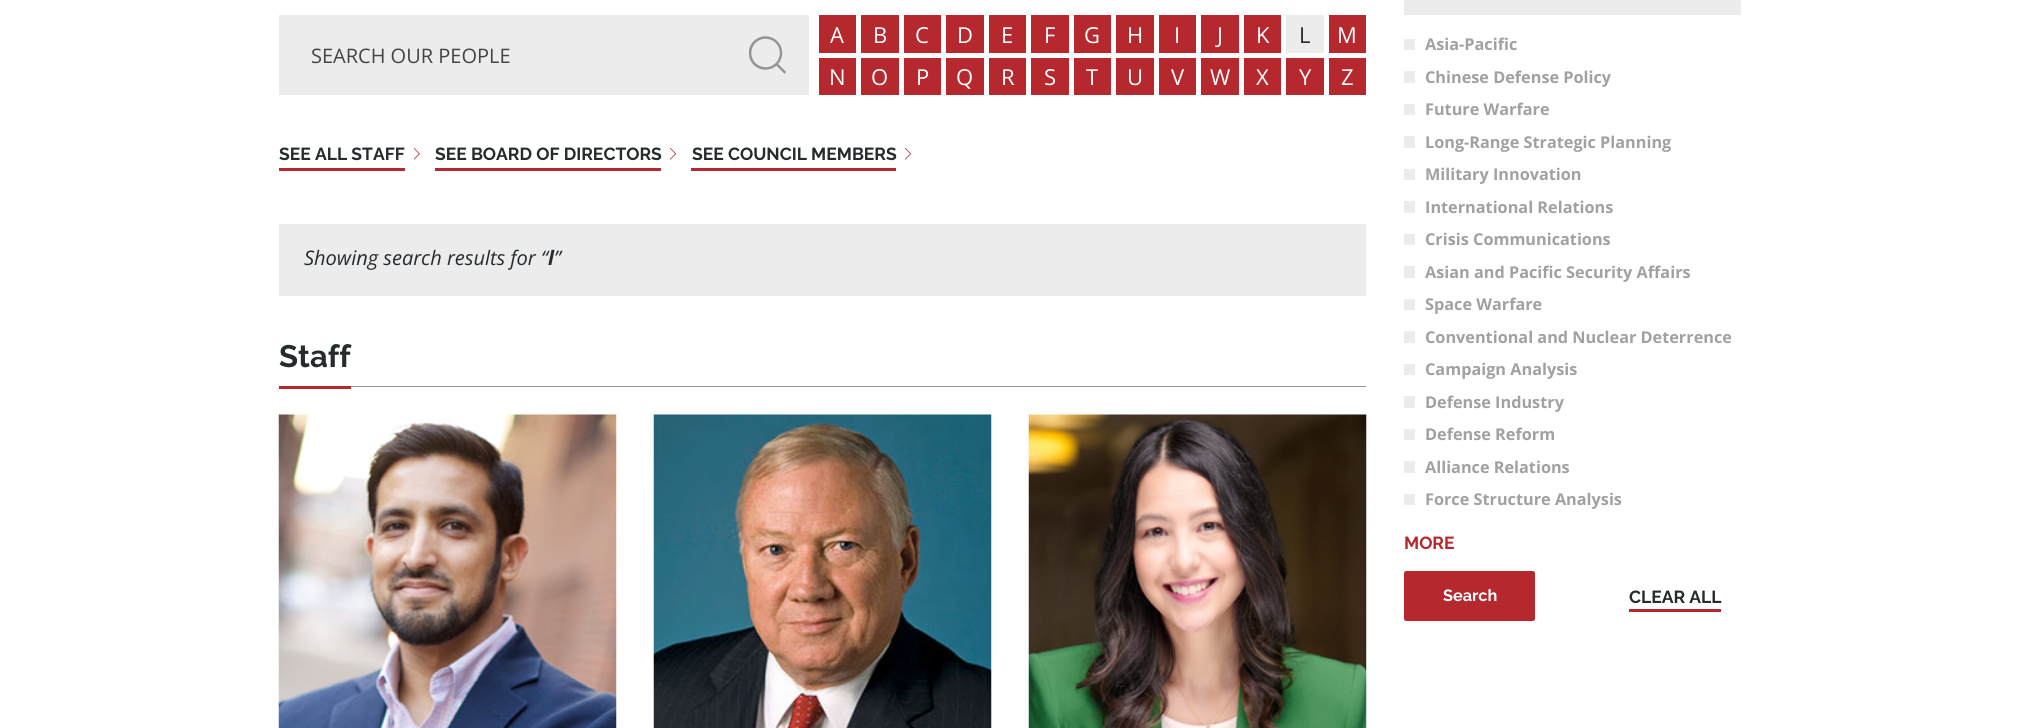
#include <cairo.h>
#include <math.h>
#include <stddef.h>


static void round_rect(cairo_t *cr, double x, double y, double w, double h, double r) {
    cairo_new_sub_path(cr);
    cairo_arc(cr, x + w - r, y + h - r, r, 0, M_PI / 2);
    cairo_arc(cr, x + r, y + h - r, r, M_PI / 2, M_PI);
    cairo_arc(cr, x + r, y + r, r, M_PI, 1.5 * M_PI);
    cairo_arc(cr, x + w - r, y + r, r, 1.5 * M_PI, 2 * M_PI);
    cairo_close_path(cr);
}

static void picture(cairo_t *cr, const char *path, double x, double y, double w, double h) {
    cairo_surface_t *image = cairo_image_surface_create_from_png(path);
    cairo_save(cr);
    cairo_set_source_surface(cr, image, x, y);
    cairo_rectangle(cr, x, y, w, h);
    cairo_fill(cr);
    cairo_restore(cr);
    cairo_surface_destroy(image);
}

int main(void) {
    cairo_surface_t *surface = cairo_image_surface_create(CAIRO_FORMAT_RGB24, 2019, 728);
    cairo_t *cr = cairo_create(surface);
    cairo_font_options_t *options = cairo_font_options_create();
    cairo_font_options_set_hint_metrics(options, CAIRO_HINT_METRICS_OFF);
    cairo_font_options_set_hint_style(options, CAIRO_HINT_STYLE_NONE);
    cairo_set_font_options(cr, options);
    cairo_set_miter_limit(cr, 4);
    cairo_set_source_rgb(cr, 1, 1, 1);
    cairo_paint(cr);
    cairo_set_source_rgb(cr, 0.925, 0.925, 0.925);
    cairo_rectangle(cr, 279, 15, 530, 80);
    cairo_fill(cr);
    picture(cr, "img1.png", 749, 36, 37, 38);
    cairo_select_font_face(cr, "Open Sans", CAIRO_FONT_SLANT_NORMAL, CAIRO_FONT_WEIGHT_NORMAL);
    cairo_set_font_size(cr, 20);
    cairo_set_source_rgb(cr, 0.267, 0.267, 0.267);
    cairo_move_to(cr, 311, 63);
    cairo_show_text(cr, "SEARCH OUR PEOPLE");
    cairo_set_source_rgb(cr, 0.706, 0.157, 0.18);
    cairo_rectangle(cr, 819, 15, 37, 38);
    cairo_fill(cr);
    cairo_set_font_size(cr, 22);
    cairo_set_source_rgb(cr, 1, 1, 1);
    cairo_move_to(cr, 830, 43);
    cairo_show_text(cr, "A");
    cairo_set_source_rgb(cr, 0.706, 0.157, 0.18);
    cairo_rectangle(cr, 861, 15, 38, 38);
    cairo_fill(cr);
    cairo_set_source_rgb(cr, 1, 1, 1);
    cairo_move_to(cr, 873, 43);
    cairo_show_text(cr, "B");
    cairo_set_source_rgb(cr, 0.706, 0.157, 0.18);
    cairo_rectangle(cr, 904, 15, 37, 38);
    cairo_fill(cr);
    cairo_set_source_rgb(cr, 1, 1, 1);
    cairo_move_to(cr, 915, 43);
    cairo_show_text(cr, "C");
    cairo_set_source_rgb(cr, 0.706, 0.157, 0.18);
    cairo_rectangle(cr, 946, 15, 38, 38);
    cairo_fill(cr);
    cairo_set_source_rgb(cr, 1, 1, 1);
    cairo_move_to(cr, 957, 43);
    cairo_show_text(cr, "D");
    cairo_set_source_rgb(cr, 0.706, 0.157, 0.18);
    cairo_rectangle(cr, 989, 15, 37, 38);
    cairo_fill(cr);
    cairo_set_source_rgb(cr, 1, 1, 1);
    cairo_move_to(cr, 1001, 43);
    cairo_show_text(cr, "E");
    cairo_set_source_rgb(cr, 0.706, 0.157, 0.18);
    cairo_rectangle(cr, 1031, 15, 38, 38);
    cairo_fill(cr);
    cairo_set_source_rgb(cr, 1, 1, 1);
    cairo_move_to(cr, 1044, 43);
    cairo_show_text(cr, "F");
    cairo_set_source_rgb(cr, 0.706, 0.157, 0.18);
    cairo_rectangle(cr, 1074, 15, 37, 38);
    cairo_fill(cr);
    cairo_set_source_rgb(cr, 1, 1, 1);
    cairo_move_to(cr, 1084, 43);
    cairo_show_text(cr, "G");
    cairo_set_source_rgb(cr, 0.706, 0.157, 0.18);
    cairo_rectangle(cr, 1116, 15, 38, 38);
    cairo_fill(cr);
    cairo_set_source_rgb(cr, 1, 1, 1);
    cairo_move_to(cr, 1127, 43);
    cairo_show_text(cr, "H");
    cairo_set_source_rgb(cr, 0.706, 0.157, 0.18);
    cairo_rectangle(cr, 1159, 15, 37, 38);
    cairo_fill(cr);
    cairo_set_source_rgb(cr, 1, 1, 1);
    cairo_move_to(cr, 1174, 43);
    cairo_show_text(cr, "I");
    cairo_set_source_rgb(cr, 0.706, 0.157, 0.18);
    cairo_rectangle(cr, 1201, 15, 38, 38);
    cairo_fill(cr);
    cairo_set_source_rgb(cr, 1, 1, 1);
    cairo_move_to(cr, 1217, 43);
    cairo_show_text(cr, "J");
    cairo_set_source_rgb(cr, 0.706, 0.157, 0.18);
    cairo_rectangle(cr, 1244, 15, 37, 38);
    cairo_fill(cr);
    cairo_set_source_rgb(cr, 1, 1, 1);
    cairo_move_to(cr, 1256, 43);
    cairo_show_text(cr, "K");
    cairo_set_source_rgb(cr, 0.925, 0.925, 0.925);
    cairo_rectangle(cr, 1286, 15, 38, 38);
    cairo_fill(cr);
    cairo_set_source_rgb(cr, 0.149, 0.169, 0.18);
    cairo_move_to(cr, 1299, 43);
    cairo_show_text(cr, "L");
    cairo_set_source_rgb(cr, 0.706, 0.157, 0.18);
    cairo_rectangle(cr, 1329, 15, 37, 38);
    cairo_fill(cr);
    cairo_set_source_rgb(cr, 1, 1, 1);
    cairo_move_to(cr, 1337, 43);
    cairo_show_text(cr, "M");
    cairo_set_source_rgb(cr, 0.706, 0.157, 0.18);
    cairo_rectangle(cr, 819, 58, 37, 37);
    cairo_fill(cr);
    cairo_set_source_rgb(cr, 1, 1, 1);
    cairo_move_to(cr, 829, 85);
    cairo_show_text(cr, "N");
    cairo_set_source_rgb(cr, 0.706, 0.157, 0.18);
    cairo_rectangle(cr, 861, 58, 38, 37);
    cairo_fill(cr);
    cairo_set_source_rgb(cr, 1, 1, 1);
    cairo_move_to(cr, 871, 85);
    cairo_show_text(cr, "O");
    cairo_set_source_rgb(cr, 0.706, 0.157, 0.18);
    cairo_rectangle(cr, 904, 58, 37, 37);
    cairo_fill(cr);
    cairo_set_source_rgb(cr, 1, 1, 1);
    cairo_move_to(cr, 916, 85);
    cairo_show_text(cr, "P");
    cairo_set_source_rgb(cr, 0.706, 0.157, 0.18);
    cairo_rectangle(cr, 946, 58, 38, 37);
    cairo_fill(cr);
    cairo_set_source_rgb(cr, 1, 1, 1);
    cairo_move_to(cr, 956, 85);
    cairo_show_text(cr, "Q");
    cairo_set_source_rgb(cr, 0.706, 0.157, 0.18);
    cairo_rectangle(cr, 989, 58, 37, 37);
    cairo_fill(cr);
    cairo_set_source_rgb(cr, 1, 1, 1);
    cairo_move_to(cr, 1001, 85);
    cairo_show_text(cr, "R");
    cairo_set_source_rgb(cr, 0.706, 0.157, 0.18);
    cairo_rectangle(cr, 1031, 58, 38, 37);
    cairo_fill(cr);
    cairo_set_source_rgb(cr, 1, 1, 1);
    cairo_move_to(cr, 1044, 85);
    cairo_show_text(cr, "S");
    cairo_set_source_rgb(cr, 0.706, 0.157, 0.18);
    cairo_rectangle(cr, 1074, 58, 37, 37);
    cairo_fill(cr);
    cairo_set_source_rgb(cr, 1, 1, 1);
    cairo_move_to(cr, 1086, 85);
    cairo_show_text(cr, "T");
    cairo_set_source_rgb(cr, 0.706, 0.157, 0.18);
    cairo_rectangle(cr, 1116, 58, 38, 37);
    cairo_fill(cr);
    cairo_set_source_rgb(cr, 1, 1, 1);
    cairo_move_to(cr, 1127, 85);
    cairo_show_text(cr, "U");
    cairo_set_source_rgb(cr, 0.706, 0.157, 0.18);
    cairo_rectangle(cr, 1159, 58, 37, 37);
    cairo_fill(cr);
    cairo_set_source_rgb(cr, 1, 1, 1);
    cairo_move_to(cr, 1171, 85);
    cairo_show_text(cr, "V");
    cairo_set_source_rgb(cr, 0.706, 0.157, 0.18);
    cairo_rectangle(cr, 1201, 58, 38, 37);
    cairo_fill(cr);
    cairo_set_source_rgb(cr, 1, 1, 1);
    cairo_move_to(cr, 1210, 85);
    cairo_show_text(cr, "W");
    cairo_set_source_rgb(cr, 0.706, 0.157, 0.18);
    cairo_rectangle(cr, 1244, 58, 37, 37);
    cairo_fill(cr);
    cairo_set_source_rgb(cr, 1, 1, 1);
    cairo_move_to(cr, 1256, 85);
    cairo_show_text(cr, "X");
    cairo_set_source_rgb(cr, 0.706, 0.157, 0.18);
    cairo_rectangle(cr, 1286, 58, 38, 37);
    cairo_fill(cr);
    cairo_set_source_rgb(cr, 1, 1, 1);
    cairo_move_to(cr, 1299, 85);
    cairo_show_text(cr, "Y");
    cairo_set_source_rgb(cr, 0.706, 0.157, 0.18);
    cairo_rectangle(cr, 1329, 58, 37, 37);
    cairo_fill(cr);
    cairo_set_source_rgb(cr, 1, 1, 1);
    cairo_move_to(cr, 1341, 85);
    cairo_show_text(cr, "Z");
    cairo_set_source_rgb(cr, 0.706, 0.157, 0.18);
    cairo_rectangle(cr, 279, 168, 126, 3);
    cairo_fill(cr);
    cairo_select_font_face(cr, "Raleway", CAIRO_FONT_SLANT_NORMAL, CAIRO_FONT_WEIGHT_BOLD);
    cairo_set_font_size(cr, 17.5);
    cairo_set_source_rgb(cr, 0.149, 0.169, 0.18);
    cairo_move_to(cr, 279, 160);
    cairo_show_text(cr, "SEE ALL STAFF");
    picture(cr, "img2.png", 414, 148, 6, 12);
    cairo_set_source_rgb(cr, 0.706, 0.157, 0.18);
    cairo_rectangle(cr, 435, 168, 226, 3);
    cairo_fill(cr);
    cairo_set_source_rgb(cr, 0.149, 0.169, 0.18);
    cairo_move_to(cr, 435, 160);
    cairo_show_text(cr, "SEE BOARD OF DIRECTORS");
    picture(cr, "img3.png", 670, 148, 6, 12);
    cairo_set_source_rgb(cr, 0.706, 0.157, 0.18);
    cairo_rectangle(cr, 691, 168, 205, 3);
    cairo_fill(cr);
    cairo_set_source_rgb(cr, 0.149, 0.169, 0.18);
    cairo_move_to(cr, 692, 160);
    cairo_show_text(cr, "SEE COUNCIL MEMBERS");
    picture(cr, "img3.png", 905, 148, 6, 12);
    cairo_set_source_rgb(cr, 0.925, 0.925, 0.925);
    cairo_rectangle(cr, 279, 224, 1087, 72);
    cairo_fill(cr);
    cairo_select_font_face(cr, "Open Sans", CAIRO_FONT_SLANT_ITALIC, CAIRO_FONT_WEIGHT_NORMAL);
    cairo_set_font_size(cr, 20);
    cairo_set_source_rgb(cr, 0.149, 0.169, 0.18);
    cairo_move_to(cr, 304, 265);
    cairo_show_text(cr, "Showing search results for “");
    cairo_select_font_face(cr, "Open Sans", CAIRO_FONT_SLANT_ITALIC, CAIRO_FONT_WEIGHT_BOLD);
    cairo_move_to(cr, 548, 265);
    cairo_show_text(cr, "l");
    cairo_select_font_face(cr, "Open Sans", CAIRO_FONT_SLANT_ITALIC, CAIRO_FONT_WEIGHT_NORMAL);
    cairo_move_to(cr, 554, 265);
    cairo_show_text(cr, "”");
    cairo_set_source_rgb(cr, 0.573, 0.584, 0.588);
    cairo_rectangle(cr, 351, 386, 1015, 1);
    cairo_fill(cr);
    cairo_set_source_rgb(cr, 0.706, 0.157, 0.18);
    cairo_rectangle(cr, 279, 386, 72, 3);
    cairo_fill(cr);
    cairo_select_font_face(cr, "Raleway", CAIRO_FONT_SLANT_NORMAL, CAIRO_FONT_WEIGHT_BOLD);
    cairo_set_font_size(cr, 31);
    cairo_set_source_rgb(cr, 0.149, 0.169, 0.18);
    cairo_move_to(cr, 279, 367);
    cairo_show_text(cr, "Staff");
    picture(cr, "img4.png", 278, 414, 339, 314);
    picture(cr, "img5.png", 653, 414, 339, 314);
    picture(cr, "img6.png", 1028, 414, 339, 314);
    cairo_set_source_rgb(cr, 0.925, 0.925, 0.925);
    cairo_rectangle(cr, 1404, 0, 337, 15);
    cairo_fill(cr);
    cairo_rectangle(cr, 1404, 39, 11, 11);
    cairo_fill(cr);
    cairo_select_font_face(cr, "Open Sans", CAIRO_FONT_SLANT_NORMAL, CAIRO_FONT_WEIGHT_BOLD);
    cairo_set_font_size(cr, 16.25);
    cairo_set_source_rgb(cr, 0.631, 0.631, 0.631);
    cairo_move_to(cr, 1425, 50);
    cairo_show_text(cr, "Asia-Pacific");
    cairo_set_source_rgb(cr, 0.925, 0.925, 0.925);
    cairo_rectangle(cr, 1404, 71, 11, 12);
    cairo_fill(cr);
    cairo_set_source_rgb(cr, 0.631, 0.631, 0.631);
    cairo_move_to(cr, 1425, 83);
    cairo_show_text(cr, "Chinese Defense Policy");
    cairo_set_source_rgb(cr, 0.925, 0.925, 0.925);
    cairo_rectangle(cr, 1404, 104, 11, 11);
    cairo_fill(cr);
    cairo_set_source_rgb(cr, 0.631, 0.631, 0.631);
    cairo_move_to(cr, 1425, 115);
    cairo_show_text(cr, "Future Warfare");
    cairo_set_source_rgb(cr, 0.925, 0.925, 0.925);
    cairo_rectangle(cr, 1404, 136, 11, 12);
    cairo_fill(cr);
    cairo_set_source_rgb(cr, 0.631, 0.631, 0.631);
    cairo_move_to(cr, 1425, 148);
    cairo_show_text(cr, "Long-Range Strategic Planning");
    cairo_set_source_rgb(cr, 0.925, 0.925, 0.925);
    cairo_rectangle(cr, 1404, 169, 11, 11);
    cairo_fill(cr);
    cairo_set_source_rgb(cr, 0.631, 0.631, 0.631);
    cairo_move_to(cr, 1425, 180);
    cairo_show_text(cr, "Military Innovation");
    cairo_set_source_rgb(cr, 0.925, 0.925, 0.925);
    cairo_rectangle(cr, 1404, 201, 11, 12);
    cairo_fill(cr);
    cairo_set_source_rgb(cr, 0.631, 0.631, 0.631);
    cairo_move_to(cr, 1425, 213);
    cairo_show_text(cr, "International Relations");
    cairo_set_source_rgb(cr, 0.925, 0.925, 0.925);
    cairo_rectangle(cr, 1404, 234, 11, 11);
    cairo_fill(cr);
    cairo_set_source_rgb(cr, 0.631, 0.631, 0.631);
    cairo_move_to(cr, 1425, 245);
    cairo_show_text(cr, "Crisis Communications");
    cairo_set_source_rgb(cr, 0.925, 0.925, 0.925);
    cairo_rectangle(cr, 1404, 266, 11, 12);
    cairo_fill(cr);
    cairo_set_source_rgb(cr, 0.631, 0.631, 0.631);
    cairo_move_to(cr, 1425, 278);
    cairo_show_text(cr, "Asian and Pacific Security Affairs");
    cairo_set_source_rgb(cr, 0.925, 0.925, 0.925);
    cairo_rectangle(cr, 1404, 299, 11, 11);
    cairo_fill(cr);
    cairo_set_source_rgb(cr, 0.631, 0.631, 0.631);
    cairo_move_to(cr, 1425, 310);
    cairo_show_text(cr, "Space Warfare");
    cairo_set_source_rgb(cr, 0.925, 0.925, 0.925);
    cairo_rectangle(cr, 1404, 331, 11, 12);
    cairo_fill(cr);
    cairo_set_source_rgb(cr, 0.631, 0.631, 0.631);
    cairo_move_to(cr, 1425, 343);
    cairo_show_text(cr, "Conventional and Nuclear Deterrence");
    cairo_set_source_rgb(cr, 0.925, 0.925, 0.925);
    cairo_rectangle(cr, 1404, 364, 11, 11);
    cairo_fill(cr);
    cairo_set_source_rgb(cr, 0.631, 0.631, 0.631);
    cairo_move_to(cr, 1425, 375);
    cairo_show_text(cr, "Campaign Analysis");
    cairo_set_source_rgb(cr, 0.925, 0.925, 0.925);
    cairo_rectangle(cr, 1404, 396, 11, 12);
    cairo_fill(cr);
    cairo_set_source_rgb(cr, 0.631, 0.631, 0.631);
    cairo_move_to(cr, 1425, 408);
    cairo_show_text(cr, "Defense Industry");
    cairo_set_source_rgb(cr, 0.925, 0.925, 0.925);
    cairo_rectangle(cr, 1404, 429, 11, 11);
    cairo_fill(cr);
    cairo_set_source_rgb(cr, 0.631, 0.631, 0.631);
    cairo_move_to(cr, 1425, 440);
    cairo_show_text(cr, "Defense Reform");
    cairo_set_source_rgb(cr, 0.925, 0.925, 0.925);
    cairo_rectangle(cr, 1404, 461, 11, 12);
    cairo_fill(cr);
    cairo_set_source_rgb(cr, 0.631, 0.631, 0.631);
    cairo_move_to(cr, 1425, 473);
    cairo_show_text(cr, "Alliance Relations");
    cairo_set_source_rgb(cr, 0.925, 0.925, 0.925);
    cairo_rectangle(cr, 1404, 494, 11, 11);
    cairo_fill(cr);
    cairo_set_source_rgb(cr, 0.631, 0.631, 0.631);
    cairo_move_to(cr, 1425, 505);
    cairo_show_text(cr, "Force Structure Analysis");
    cairo_select_font_face(cr, "Raleway", CAIRO_FONT_SLANT_NORMAL, CAIRO_FONT_WEIGHT_BOLD);
    cairo_set_font_size(cr, 17.5);
    cairo_set_source_rgb(cr, 0.706, 0.157, 0.18);
    cairo_move_to(cr, 1404, 549);
    cairo_show_text(cr, "MORE");
    round_rect(cr, 1404.5, 571.5, 130, 49, 2);
    cairo_fill_preserve(cr);
    cairo_set_line_width(cr, 1);
    cairo_stroke(cr);
    cairo_set_font_size(cr, 16.25);
    cairo_set_source_rgb(cr, 1, 1, 1);
    cairo_move_to(cr, 1443, 601);
    cairo_show_text(cr, "Search");
    cairo_set_source_rgb(cr, 0.706, 0.157, 0.18);
    cairo_rectangle(cr, 1629, 609, 92, 3);
    cairo_fill(cr);
    cairo_set_font_size(cr, 17.5);
    cairo_set_source_rgb(cr, 0.149, 0.169, 0.18);
    cairo_move_to(cr, 1629, 603);
    cairo_show_text(cr, "CLEAR ALL");
    cairo_surface_write_to_png(surface, "page.png");
    cairo_font_options_destroy(options);
    cairo_destroy(cr);
    cairo_surface_destroy(surface);
    return 0;
}
